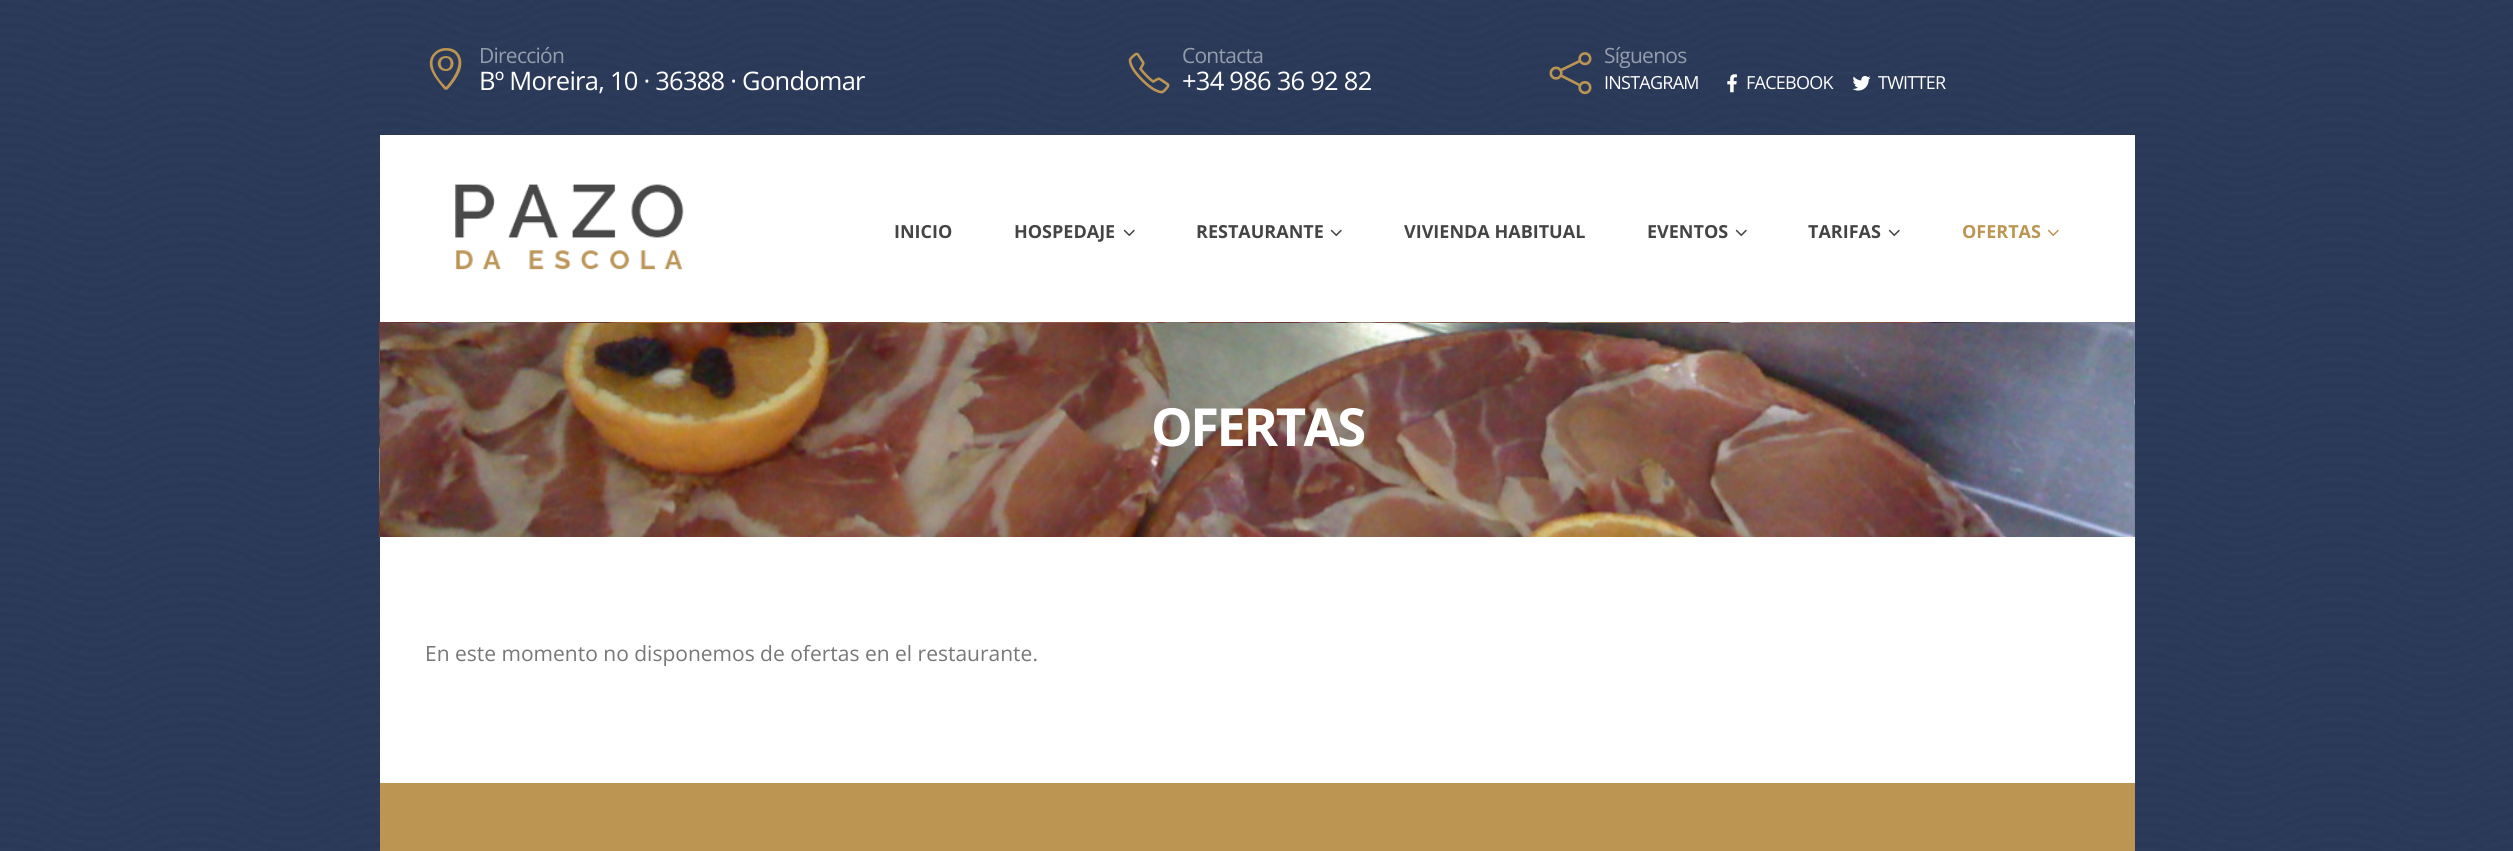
#include <cairo.h>
#include <math.h>
#include <stddef.h>


static void spaced_text(cairo_t *cr, double x, double y, const char *s, double letter, double word) {
    cairo_move_to(cr, x, y);
    while (*s) {
        char ch[5] = {0};
        int n = 0;
        do ch[n++] = *s++; while ((*s & 0xC0) == 0x80);
        cairo_show_text(cr, ch);
        cairo_rel_move_to(cr, letter + word * (*ch == ' '), 0);
    }
}

static void picture(cairo_t *cr, const char *path, double x, double y, double w, double h) {
    cairo_surface_t *image = cairo_image_surface_create_from_png(path);
    cairo_save(cr);
    cairo_set_source_surface(cr, image, x, y);
    cairo_rectangle(cr, x, y, w, h);
    cairo_fill(cr);
    cairo_restore(cr);
    cairo_surface_destroy(image);
}

int main(void) {
    cairo_surface_t *surface = cairo_image_surface_create(CAIRO_FORMAT_RGB24, 2513, 851);
    cairo_t *cr = cairo_create(surface);
    cairo_font_options_t *options = cairo_font_options_create();
    cairo_font_options_set_hint_metrics(options, CAIRO_HINT_METRICS_OFF);
    cairo_font_options_set_hint_style(options, CAIRO_HINT_STYLE_NONE);
    cairo_set_font_options(cr, options);
    cairo_set_miter_limit(cr, 4);
    cairo_set_source_rgb(cr, 1, 1, 1);
    cairo_paint(cr);
    picture(cr, "img1.png", 0, 0, 2513, 851);
    cairo_set_source_rgb(cr, 0.737, 0.584, 0.322);
    cairo_new_path(cr);
    cairo_move_to(cr, 446, 48);
    cairo_curve_to(cr, 441, 48, 437, 50, 434, 53);
    cairo_curve_to(cr, 423, 65, 436, 79, 444, 89);
    cairo_curve_to(cr, 444, 90, 448, 90, 448, 89);
    cairo_curve_to(cr, 456, 80, 467, 65, 458, 53);
    cairo_curve_to(cr, 455, 49, 450, 48, 446, 48);
    cairo_close_path(cr);
    cairo_move_to(cr, 446, 87);
    cairo_curve_to(cr, 400, 41, 490, 36, 446, 87);
    cairo_close_path(cr);
    cairo_move_to(cr, 446, 56);
    cairo_curve_to(cr, 435, 56, 435, 71, 446, 71);
    cairo_curve_to(cr, 456, 71, 456, 56, 446, 56);
    cairo_close_path(cr);
    cairo_move_to(cr, 446, 69);
    cairo_curve_to(cr, 439, 69, 439, 58, 446, 58);
    cairo_curve_to(cr, 452, 58, 452, 69, 446, 69);
    cairo_close_path(cr);
    cairo_fill(cr);
    cairo_select_font_face(cr, "Open Sans", CAIRO_FONT_SLANT_NORMAL, CAIRO_FONT_WEIGHT_NORMAL);
    cairo_set_font_size(cr, 21);
    cairo_set_source_rgb(cr, 0.584, 0.616, 0.675);
    spaced_text(cr, 479, 63, "Dirección", -0.75, 0);
    cairo_set_font_size(cr, 25.5);
    cairo_set_source_rgb(cr, 1, 1, 1);
    spaced_text(cr, 479, 90, "Bº Moreira, 10 · 36388 · Gondomar", -0.75, 0);
    picture(cr, "img2.png", 1128, 52, 42, 42);
    cairo_set_font_size(cr, 21);
    cairo_set_source_rgb(cr, 0.584, 0.616, 0.675);
    spaced_text(cr, 1182, 63, "Contacta", -0.75, 0);
    cairo_set_font_size(cr, 25.5);
    cairo_set_source_rgb(cr, 1, 1, 1);
    spaced_text(cr, 1182, 90, "+34 986 36 92 82", -0.75, 0);
    picture(cr, "img3.png", 1549, 52, 43, 43);
    cairo_set_font_size(cr, 21);
    cairo_set_source_rgb(cr, 0.584, 0.616, 0.675);
    spaced_text(cr, 1604, 63, "Síguenos", -0.75, 0);
    cairo_set_font_size(cr, 18);
    cairo_set_source_rgb(cr, 1, 1, 1);
    spaced_text(cr, 1604, 89, "INSTAGRAM", -0.75, 0);
    picture(cr, "img4.png", 1727, 74, 10, 19);
    spaced_text(cr, 1746, 89, "FACEBOOK", -0.75, 0);
    picture(cr, "img5.png", 1852, 76, 19, 15);
    spaced_text(cr, 1878, 89, "TWITTER", -0.75, 0);
    cairo_rectangle(cr, 380, 135, 1755, 187);
    cairo_fill(cr);
    picture(cr, "img6.png", 455, 184, 229, 86);
    cairo_select_font_face(cr, "Open Sans", CAIRO_FONT_SLANT_NORMAL, CAIRO_FONT_WEIGHT_BOLD);
    cairo_set_source_rgb(cr, 0.267, 0.267, 0.267);
    cairo_move_to(cr, 894, 238);
    cairo_show_text(cr, "INICIO");
    cairo_move_to(cr, 1014, 238);
    cairo_show_text(cr, "HOSPEDAJE");
    picture(cr, "img7.png", 1123, 229, 12, 8);
    cairo_move_to(cr, 1196, 238);
    cairo_show_text(cr, "RESTAURANTE");
    picture(cr, "img7.png", 1330, 229, 12, 8);
    cairo_move_to(cr, 1404, 238);
    cairo_show_text(cr, "VIVIENDA HABITUAL");
    cairo_move_to(cr, 1647, 238);
    cairo_show_text(cr, "EVENTOS");
    picture(cr, "img7.png", 1735, 229, 12, 8);
    cairo_move_to(cr, 1808, 238);
    cairo_show_text(cr, "TARIFAS");
    picture(cr, "img7.png", 1888, 229, 12, 8);
    cairo_set_source_rgb(cr, 0.737, 0.584, 0.322);
    cairo_move_to(cr, 1962, 238);
    cairo_show_text(cr, "OFERTAS");
    picture(cr, "img8.png", 2047, 229, 12, 8);
    picture(cr, "img9.png", 379, 322, 1756, 215);
    picture(cr, "img10.png", 380, 323, 1755, 214);
    cairo_set_font_size(cr, 52.5);
    cairo_set_source_rgb(cr, 1, 1, 1);
    spaced_text(cr, 1151, 446, "OFERTAS", -2.5, 0);
    cairo_rectangle(cr, 380, 537, 1755, 246);
    cairo_fill(cr);
    cairo_select_font_face(cr, "Open Sans", CAIRO_FONT_SLANT_NORMAL, CAIRO_FONT_WEIGHT_NORMAL);
    cairo_set_font_size(cr, 21);
    cairo_set_source_rgb(cr, 0.467, 0.467, 0.467);
    cairo_move_to(cr, 425, 661);
    cairo_show_text(cr, "En este momento no disponemos de ofertas en el restaurante.");
    cairo_set_source_rgb(cr, 0.737, 0.584, 0.322);
    cairo_rectangle(cr, 380, 783, 1755, 68);
    cairo_fill(cr);
    cairo_surface_write_to_png(surface, "page.png");
    cairo_font_options_destroy(options);
    cairo_destroy(cr);
    cairo_surface_destroy(surface);
    return 0;
}
